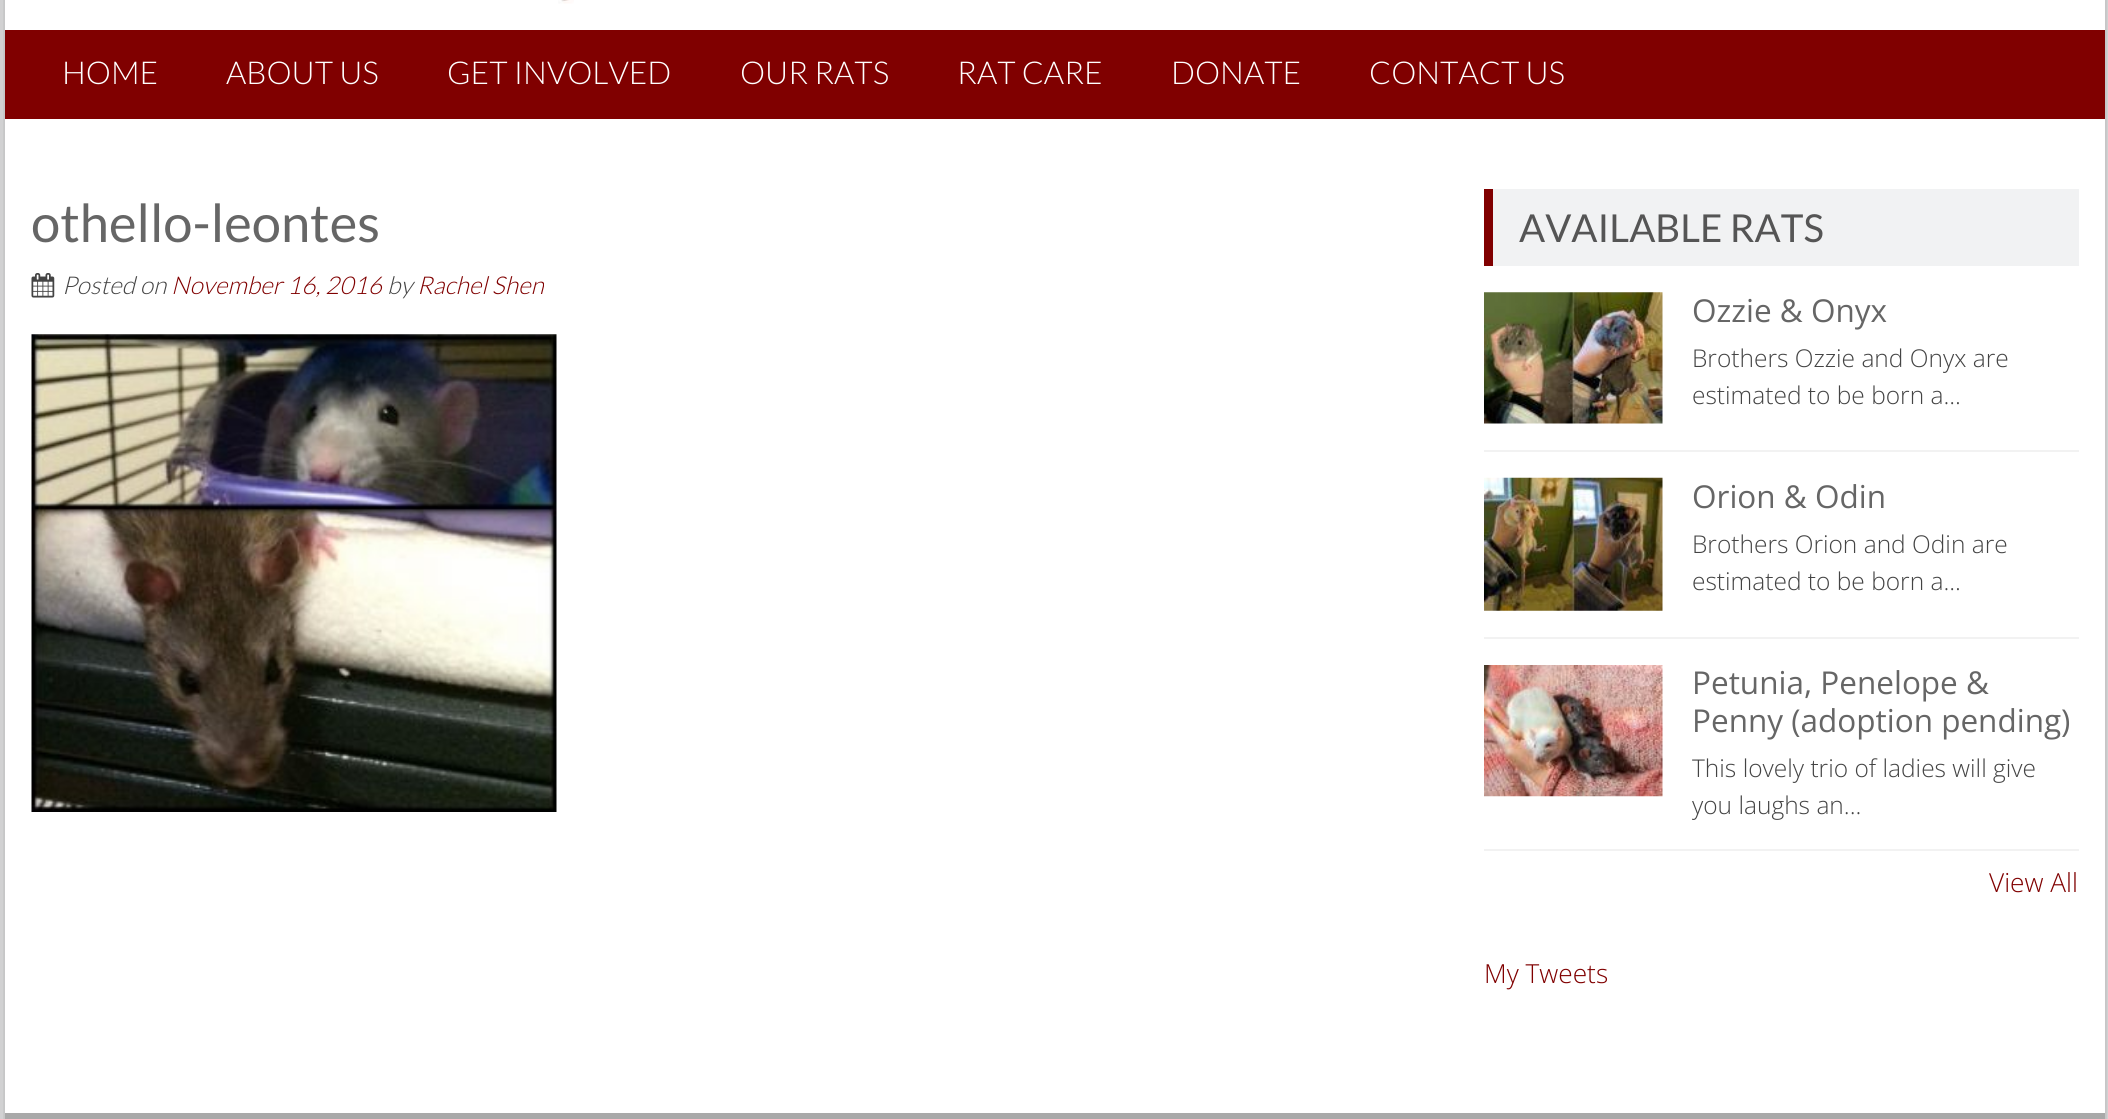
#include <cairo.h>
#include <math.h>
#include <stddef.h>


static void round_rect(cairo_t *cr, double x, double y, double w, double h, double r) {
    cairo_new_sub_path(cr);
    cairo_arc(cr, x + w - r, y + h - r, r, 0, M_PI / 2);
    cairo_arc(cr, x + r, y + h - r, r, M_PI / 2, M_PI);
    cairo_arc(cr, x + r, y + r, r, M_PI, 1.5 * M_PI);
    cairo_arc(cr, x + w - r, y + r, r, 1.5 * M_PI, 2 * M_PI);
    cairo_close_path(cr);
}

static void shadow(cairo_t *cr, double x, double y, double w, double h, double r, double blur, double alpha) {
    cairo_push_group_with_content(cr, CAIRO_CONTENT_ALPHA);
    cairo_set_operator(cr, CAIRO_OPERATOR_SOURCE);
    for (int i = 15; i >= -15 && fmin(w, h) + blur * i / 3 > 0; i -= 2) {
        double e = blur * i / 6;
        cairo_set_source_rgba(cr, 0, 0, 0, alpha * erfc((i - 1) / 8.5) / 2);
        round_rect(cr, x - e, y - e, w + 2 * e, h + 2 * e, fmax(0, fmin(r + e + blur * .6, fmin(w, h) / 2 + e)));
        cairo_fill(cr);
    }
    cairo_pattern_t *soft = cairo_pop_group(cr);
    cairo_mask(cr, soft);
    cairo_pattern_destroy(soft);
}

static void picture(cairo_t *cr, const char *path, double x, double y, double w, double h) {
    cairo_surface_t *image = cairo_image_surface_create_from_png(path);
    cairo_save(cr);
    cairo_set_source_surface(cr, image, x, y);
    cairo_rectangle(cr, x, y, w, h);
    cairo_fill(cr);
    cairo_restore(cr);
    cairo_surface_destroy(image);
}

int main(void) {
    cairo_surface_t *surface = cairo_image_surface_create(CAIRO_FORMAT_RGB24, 2108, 1119);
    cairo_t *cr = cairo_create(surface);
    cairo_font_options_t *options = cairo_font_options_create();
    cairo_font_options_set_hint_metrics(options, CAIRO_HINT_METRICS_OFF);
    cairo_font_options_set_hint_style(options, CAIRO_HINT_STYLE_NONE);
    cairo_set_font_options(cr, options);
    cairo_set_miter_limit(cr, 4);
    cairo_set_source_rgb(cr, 0.949, 0.953, 0.957);
    cairo_paint(cr);
    cairo_set_source_rgb(cr, 0.6, 0.6, 0.6);
    shadow(cr, 5, -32, 2100, 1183, 0, 10.5, 1);
    cairo_set_source_rgb(cr, 1, 1, 1);
    cairo_rectangle(cr, 5, 0, 2100, 1113);
    cairo_fill(cr);
    picture(cr, "img1.png", 558, 0, 16, 4);
    cairo_set_source_rgb(cr, 0.502, 0, 0);
    cairo_rectangle(cr, 5, 30, 2100, 89);
    cairo_fill(cr);
    cairo_select_font_face(cr, "Lato Light", CAIRO_FONT_SLANT_NORMAL, CAIRO_FONT_WEIGHT_NORMAL);
    cairo_set_font_size(cr, 31.5);
    cairo_set_source_rgb(cr, 1, 1, 1);
    cairo_move_to(cr, 62, 84);
    cairo_show_text(cr, "HOME");
    cairo_move_to(cr, 226, 84);
    cairo_show_text(cr, "ABOUT US");
    cairo_move_to(cr, 447, 84);
    cairo_show_text(cr, "GET INVOLVED");
    cairo_move_to(cr, 740, 84);
    cairo_show_text(cr, "OUR RATS");
    cairo_move_to(cr, 957, 84);
    cairo_show_text(cr, "RAT CARE");
    cairo_move_to(cr, 1171, 84);
    cairo_show_text(cr, "DONATE");
    cairo_move_to(cr, 1369, 84);
    cairo_show_text(cr, "CONTACT US");
    cairo_select_font_face(cr, "Lato", CAIRO_FONT_SLANT_NORMAL, CAIRO_FONT_WEIGHT_NORMAL);
    cairo_set_font_size(cr, 52.5);
    cairo_set_source_rgb(cr, 0.4, 0.4, 0.4);
    cairo_move_to(cr, 31, 242);
    cairo_show_text(cr, "othello-leontes");
    picture(cr, "img2.png", 31, 273, 24, 25);
    cairo_select_font_face(cr, "Lato Light", CAIRO_FONT_SLANT_ITALIC, CAIRO_FONT_WEIGHT_NORMAL);
    cairo_set_font_size(cr, 24.5);
    cairo_set_source_rgb(cr, 0.267, 0.267, 0.267);
    cairo_move_to(cr, 62, 294);
    cairo_show_text(cr, "Posted on");
    cairo_set_source_rgb(cr, 0.502, 0, 0);
    cairo_move_to(cr, 171, 294);
    cairo_show_text(cr, "November 16, 2016");
    cairo_set_source_rgb(cr, 0.267, 0.267, 0.267);
    cairo_move_to(cr, 387, 294);
    cairo_show_text(cr, "by");
    cairo_set_source_rgb(cr, 0.502, 0, 0);
    cairo_move_to(cr, 417, 294);
    cairo_show_text(cr, "Rachel Shen");
    picture(cr, "img3.png", 31, 334, 526, 478);
    cairo_set_source_rgb(cr, 0.945, 0.949, 0.953);
    cairo_rectangle(cr, 1493, 189, 586, 77);
    cairo_fill(cr);
    cairo_set_source_rgb(cr, 0.502, 0, 0);
    cairo_rectangle(cr, 1484, 189, 9, 77);
    cairo_fill(cr);
    cairo_select_font_face(cr, "Lato", CAIRO_FONT_SLANT_NORMAL, CAIRO_FONT_WEIGHT_NORMAL);
    cairo_set_font_size(cr, 38.5);
    cairo_set_source_rgb(cr, 0.333, 0.333, 0.333);
    cairo_move_to(cr, 1519, 242);
    cairo_show_text(cr, "AVAILABLE RATS");
    cairo_set_source_rgb(cr, 0.949, 0.949, 0.949);
    cairo_rectangle(cr, 1484, 450, 595, 2);
    cairo_fill(cr);
    picture(cr, "img4.png", 1484, 292, 179, 132);
    cairo_select_font_face(cr, "Open Sans", CAIRO_FONT_SLANT_NORMAL, CAIRO_FONT_WEIGHT_NORMAL);
    cairo_set_font_size(cr, 31.5);
    cairo_set_source_rgb(cr, 0.4, 0.4, 0.4);
    cairo_move_to(cr, 1692, 322);
    cairo_show_text(cr, "Ozzie & Onyx");
    cairo_select_font_face(cr, "Open Sans Light", CAIRO_FONT_SLANT_NORMAL, CAIRO_FONT_WEIGHT_NORMAL);
    cairo_set_font_size(cr, 24.5);
    cairo_set_source_rgb(cr, 0.267, 0.267, 0.267);
    cairo_move_to(cr, 1692, 367);
    cairo_show_text(cr, "Brothers Ozzie and Onyx are");
    cairo_move_to(cr, 1692, 404);
    cairo_show_text(cr, "estimated to be born a...");
    cairo_set_source_rgb(cr, 0.949, 0.949, 0.949);
    cairo_rectangle(cr, 1484, 637, 595, 2);
    cairo_fill(cr);
    picture(cr, "img5.png", 1484, 477, 179, 134);
    cairo_select_font_face(cr, "Open Sans", CAIRO_FONT_SLANT_NORMAL, CAIRO_FONT_WEIGHT_NORMAL);
    cairo_set_font_size(cr, 31.5);
    cairo_set_source_rgb(cr, 0.4, 0.4, 0.4);
    cairo_move_to(cr, 1692, 508);
    cairo_show_text(cr, "Orion & Odin");
    cairo_select_font_face(cr, "Open Sans Light", CAIRO_FONT_SLANT_NORMAL, CAIRO_FONT_WEIGHT_NORMAL);
    cairo_set_font_size(cr, 24.5);
    cairo_set_source_rgb(cr, 0.267, 0.267, 0.267);
    cairo_move_to(cr, 1692, 553);
    cairo_show_text(cr, "Brothers Orion and Odin are");
    cairo_move_to(cr, 1692, 590);
    cairo_show_text(cr, "estimated to be born a...");
    cairo_set_source_rgb(cr, 0.949, 0.949, 0.949);
    cairo_rectangle(cr, 1484, 849, 595, 2);
    cairo_fill(cr);
    picture(cr, "img6.png", 1484, 665, 179, 132);
    cairo_select_font_face(cr, "Open Sans", CAIRO_FONT_SLANT_NORMAL, CAIRO_FONT_WEIGHT_NORMAL);
    cairo_set_font_size(cr, 31.5);
    cairo_set_source_rgb(cr, 0.4, 0.4, 0.4);
    cairo_move_to(cr, 1692, 694);
    cairo_show_text(cr, "Petunia, Penelope &");
    cairo_move_to(cr, 1692, 732);
    cairo_show_text(cr, "Penny (adoption pending)");
    cairo_select_font_face(cr, "Open Sans Light", CAIRO_FONT_SLANT_NORMAL, CAIRO_FONT_WEIGHT_NORMAL);
    cairo_set_font_size(cr, 24.5);
    cairo_set_source_rgb(cr, 0.267, 0.267, 0.267);
    cairo_move_to(cr, 1692, 777);
    cairo_show_text(cr, "This lovely trio of ladies will give");
    cairo_move_to(cr, 1692, 814);
    cairo_show_text(cr, "you laughs an...");
    cairo_set_font_size(cr, 26.25);
    cairo_set_source_rgb(cr, 0.502, 0, 0);
    cairo_move_to(cr, 1989, 892);
    cairo_show_text(cr, "View All");
    cairo_move_to(cr, 1484, 983);
    cairo_show_text(cr, "My Tweets");
    cairo_set_source_rgb(cr, 0.663, 0.663, 0.663);
    cairo_rectangle(cr, 5, 1113, 2100, 6);
    cairo_fill(cr);
    cairo_surface_write_to_png(surface, "page.png");
    cairo_font_options_destroy(options);
    cairo_destroy(cr);
    cairo_surface_destroy(surface);
    return 0;
}
